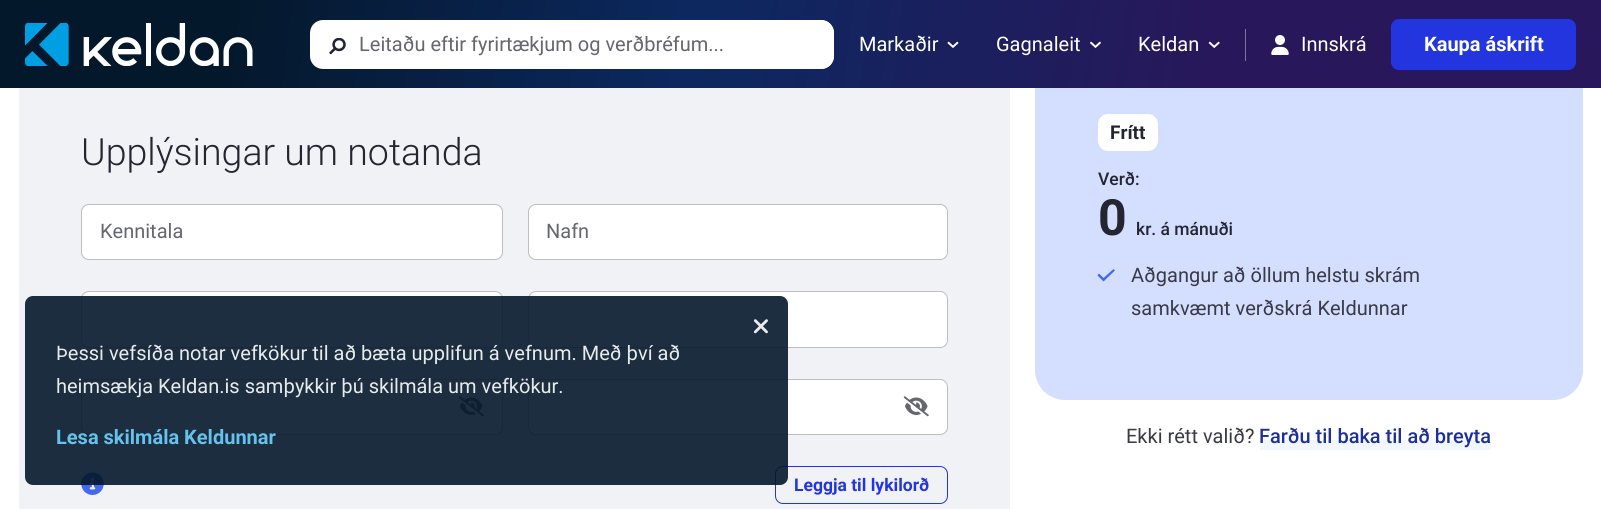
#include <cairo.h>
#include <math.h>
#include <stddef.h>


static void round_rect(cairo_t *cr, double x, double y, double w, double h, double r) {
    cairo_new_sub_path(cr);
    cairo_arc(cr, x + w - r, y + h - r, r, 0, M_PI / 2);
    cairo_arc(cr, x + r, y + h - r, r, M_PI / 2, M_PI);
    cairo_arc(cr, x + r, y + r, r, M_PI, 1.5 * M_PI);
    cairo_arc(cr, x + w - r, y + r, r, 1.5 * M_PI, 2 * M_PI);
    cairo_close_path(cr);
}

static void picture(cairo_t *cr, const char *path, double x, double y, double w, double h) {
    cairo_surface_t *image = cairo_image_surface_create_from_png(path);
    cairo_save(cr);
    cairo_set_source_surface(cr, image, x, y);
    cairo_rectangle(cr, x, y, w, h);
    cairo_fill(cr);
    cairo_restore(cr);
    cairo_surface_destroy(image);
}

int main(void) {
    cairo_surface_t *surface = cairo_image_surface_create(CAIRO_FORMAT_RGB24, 1601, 509);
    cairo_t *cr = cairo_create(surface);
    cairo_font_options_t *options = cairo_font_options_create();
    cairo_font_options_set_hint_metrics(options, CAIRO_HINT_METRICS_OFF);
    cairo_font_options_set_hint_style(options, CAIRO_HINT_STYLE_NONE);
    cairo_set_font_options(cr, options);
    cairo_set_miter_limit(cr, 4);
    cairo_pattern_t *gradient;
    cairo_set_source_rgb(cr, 1, 1, 1);
    cairo_paint(cr);
    cairo_set_source_rgb(cr, 0.831, 0.871, 1);
    round_rect(cr, 1035, 51, 548, 349, 30);
    cairo_fill(cr);
    gradient = cairo_pattern_create_linear(6.6, -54, 1595, 141);
    cairo_pattern_add_color_stop_rgba(gradient, 0.14, 0.016, 0.094, 0.169, 1);
    cairo_pattern_add_color_stop_rgba(gradient, 0.43, 0.047, 0.157, 0.373, 1);
    cairo_pattern_add_color_stop_rgba(gradient, 0.77, 0.161, 0.09, 0.357, 1);
    cairo_set_source(cr, gradient);
    cairo_pattern_destroy(gradient);
    cairo_rectangle(cr, 0, 0, 1601, 88);
    cairo_fill(cr);
    picture(cr, "img1.png", 25, 23, 44, 43);
    picture(cr, "img2.png", 83, 23, 170, 43);
    cairo_set_source_rgb(cr, 1, 1, 1);
    round_rect(cr, 310, 20, 524, 49, 13);
    cairo_fill(cr);
    picture(cr, "img3.png", 329, 38, 17, 17);
    round_rect(cr, 359, 20, 475, 49, 13);
    cairo_fill(cr);
    cairo_select_font_face(cr, "Roboto", CAIRO_FONT_SLANT_NORMAL, CAIRO_FONT_WEIGHT_NORMAL);
    cairo_set_font_size(cr, 20);
    cairo_set_source_rgb(cr, 0.396, 0.4, 0.431);
    cairo_move_to(cr, 359, 51);
    cairo_show_text(cr, "Leitaðu eftir fyrirtækjum og verðbréfum...");
    cairo_set_source_rgb(cr, 0.498, 0.455, 0.616);
    cairo_rectangle(cr, 1245, 29, 1, 32);
    cairo_fill(cr);
    cairo_set_source_rgb(cr, 1, 1, 1);
    cairo_move_to(cr, 859, 51);
    cairo_show_text(cr, "Markaðir");
    picture(cr, "img4.png", 947, 41, 12, 7);
    cairo_move_to(cr, 996, 51);
    cairo_show_text(cr, "Gagnaleit");
    picture(cr, "img5.png", 1090, 41, 11, 7);
    cairo_move_to(cr, 1138, 51);
    cairo_show_text(cr, "Keldan");
    picture(cr, "img6.png", 1208, 41, 12, 7);
    picture(cr, "img7.png", 1271, 35, 18, 20);
    cairo_move_to(cr, 1301, 51);
    cairo_show_text(cr, "Innskrá");
    cairo_set_source_rgb(cr, 0.133, 0.208, 0.875);
    round_rect(cr, 1391.5, 19.5, 184, 50, 7.5);
    cairo_fill_preserve(cr);
    cairo_set_line_width(cr, 1);
    cairo_stroke(cr);
    cairo_select_font_face(cr, "Roboto", CAIRO_FONT_SLANT_NORMAL, CAIRO_FONT_WEIGHT_BOLD);
    cairo_set_source_rgb(cr, 1, 1, 1);
    cairo_move_to(cr, 1424, 51);
    cairo_show_text(cr, "Kaupa áskrift");
    cairo_set_source_rgb(cr, 0.945, 0.949, 0.961);
    cairo_rectangle(cr, 19, 88, 991, 421);
    cairo_fill(cr);
    cairo_select_font_face(cr, "Roboto Light", CAIRO_FONT_SLANT_NORMAL, CAIRO_FONT_WEIGHT_NORMAL);
    cairo_set_font_size(cr, 37.5);
    cairo_set_source_rgb(cr, 0.137, 0.145, 0.188);
    cairo_move_to(cr, 81, 165);
    cairo_show_text(cr, "Upplýsingar um notanda");
    cairo_set_source_rgb(cr, 1, 1, 1);
    round_rect(cr, 81.5, 204.5, 421, 55, 7.5);
    cairo_fill_preserve(cr);
    cairo_set_source_rgb(cr, 0.741, 0.745, 0.757);
    cairo_stroke(cr);
    cairo_select_font_face(cr, "Roboto", CAIRO_FONT_SLANT_NORMAL, CAIRO_FONT_WEIGHT_NORMAL);
    cairo_set_font_size(cr, 20);
    cairo_set_source_rgb(cr, 0.396, 0.4, 0.431);
    cairo_move_to(cr, 100, 238);
    cairo_show_text(cr, "Kennitala");
    cairo_set_source_rgb(cr, 1, 1, 1);
    round_rect(cr, 528.5, 204.5, 419, 55, 7.5);
    cairo_fill_preserve(cr);
    cairo_set_source_rgb(cr, 0.741, 0.745, 0.757);
    cairo_stroke(cr);
    cairo_set_source_rgb(cr, 0.396, 0.4, 0.431);
    cairo_move_to(cr, 546, 238);
    cairo_show_text(cr, "Nafn");
    cairo_set_source_rgb(cr, 1, 1, 1);
    round_rect(cr, 81.5, 291.5, 421, 56, 7.5);
    cairo_fill_preserve(cr);
    cairo_set_source_rgb(cr, 0.741, 0.745, 0.757);
    cairo_stroke(cr);
    cairo_set_source_rgb(cr, 1, 1, 1);
    round_rect(cr, 528.5, 291.5, 419, 56, 7.5);
    cairo_fill_preserve(cr);
    cairo_set_source_rgb(cr, 0.741, 0.745, 0.757);
    cairo_stroke(cr);
    cairo_set_source_rgb(cr, 1, 1, 1);
    round_rect(cr, 81.5, 379.5, 421, 55, 7.5);
    cairo_fill_preserve(cr);
    cairo_set_source_rgb(cr, 0.741, 0.745, 0.757);
    cairo_stroke(cr);
    picture(cr, "img8.png", 458, 396, 26, 21);
    cairo_set_source_rgb(cr, 1, 1, 1);
    round_rect(cr, 528.5, 379.5, 419, 55, 7.5);
    cairo_fill_preserve(cr);
    cairo_set_source_rgb(cr, 0.741, 0.745, 0.757);
    cairo_stroke(cr);
    picture(cr, "img8.png", 903, 396, 26, 21);
    picture(cr, "img9.png", 81, 472, 23, 23);
    round_rect(cr, 775.5, 466.5, 172, 37, 7.5);
    cairo_set_source_rgb(cr, 0.133, 0.208, 0.875);
    cairo_stroke(cr);
    cairo_select_font_face(cr, "Roboto", CAIRO_FONT_SLANT_NORMAL, CAIRO_FONT_WEIGHT_BOLD);
    cairo_set_font_size(cr, 17.5);
    cairo_move_to(cr, 794, 491);
    cairo_show_text(cr, "Leggja til lykilorð");
    cairo_set_source_rgb(cr, 1, 1, 1);
    round_rect(cr, 1098, 114, 60, 37, 10);
    cairo_fill(cr);
    cairo_set_font_size(cr, 19);
    cairo_set_source_rgb(cr, 0.137, 0.145, 0.188);
    cairo_move_to(cr, 1110, 139);
    cairo_show_text(cr, "Frítt");
    cairo_select_font_face(cr, "Roboto Medium", CAIRO_FONT_SLANT_NORMAL, CAIRO_FONT_WEIGHT_NORMAL);
    cairo_set_font_size(cr, 17.5);
    cairo_move_to(cr, 1098, 185);
    cairo_show_text(cr, "Verð:");
    cairo_select_font_face(cr, "Roboto", CAIRO_FONT_SLANT_NORMAL, CAIRO_FONT_WEIGHT_BOLD);
    cairo_set_font_size(cr, 50);
    cairo_move_to(cr, 1098, 235);
    cairo_show_text(cr, "0");
    cairo_select_font_face(cr, "Roboto Medium", CAIRO_FONT_SLANT_NORMAL, CAIRO_FONT_WEIGHT_NORMAL);
    cairo_set_font_size(cr, 17.5);
    cairo_move_to(cr, 1136, 235);
    cairo_show_text(cr, "kr. á mánuði");
    cairo_set_source_rgb(cr, 0.271, 0.412, 0.933);
    cairo_new_path(cr);
    cairo_move_to(cr, 1115, 270.5);
    cairo_line_to(cr, 1103.5, 281.5);
    cairo_line_to(cr, 1097.5, 275.5);
    cairo_line_to(cr, 1099, 273.5);
    cairo_line_to(cr, 1103.5, 278);
    cairo_line_to(cr, 1113.5, 269);
    cairo_close_path(cr);
    cairo_fill(cr);
    cairo_select_font_face(cr, "Roboto", CAIRO_FONT_SLANT_NORMAL, CAIRO_FONT_WEIGHT_NORMAL);
    cairo_set_font_size(cr, 20);
    cairo_set_source_rgb(cr, 0.224, 0.227, 0.271);
    cairo_move_to(cr, 1131, 282);
    cairo_show_text(cr, "Aðgangur að öllum helstu skrám");
    cairo_move_to(cr, 1131, 315);
    cairo_show_text(cr, "samkvæmt verðskrá Keldunnar");
    cairo_move_to(cr, 1126, 443);
    cairo_show_text(cr, "Ekki rétt valið?");
    cairo_set_source_rgb(cr, 0.949, 0.961, 1);
    cairo_rectangle(cr, 1260, 440, 231, 10);
    cairo_fill(cr);
    cairo_select_font_face(cr, "Roboto Medium", CAIRO_FONT_SLANT_NORMAL, CAIRO_FONT_WEIGHT_NORMAL);
    cairo_set_source_rgb(cr, 0.114, 0.188, 0.592);
    cairo_move_to(cr, 1259, 443);
    cairo_show_text(cr, "Farðu til baka til að breyta");
    cairo_set_source_rgba(cr, 0.016, 0.094, 0.165, 0.9);
    round_rect(cr, 25, 296, 763, 189, 8);
    cairo_fill(cr);
    picture(cr, "img10.png", 753, 319, 15, 15);
    cairo_select_font_face(cr, "Roboto", CAIRO_FONT_SLANT_NORMAL, CAIRO_FONT_WEIGHT_NORMAL);
    cairo_set_source_rgb(cr, 0.91, 0.918, 0.925);
    cairo_move_to(cr, 56, 360);
    cairo_show_text(cr, "Þessi vefsíða notar vefkökur til að bæta upplifun á vefnum. Með því að");
    cairo_move_to(cr, 56, 393);
    cairo_show_text(cr, "heimsækja Keldan.is samþykkir þú skilmála um vefkökur.");
    cairo_select_font_face(cr, "Roboto", CAIRO_FONT_SLANT_NORMAL, CAIRO_FONT_WEIGHT_BOLD);
    cairo_set_source_rgb(cr, 0.392, 0.761, 0.925);
    cairo_move_to(cr, 56, 444);
    cairo_show_text(cr, "Lesa skilmála Keldunnar");
    cairo_surface_write_to_png(surface, "page.png");
    cairo_font_options_destroy(options);
    cairo_destroy(cr);
    cairo_surface_destroy(surface);
    return 0;
}
